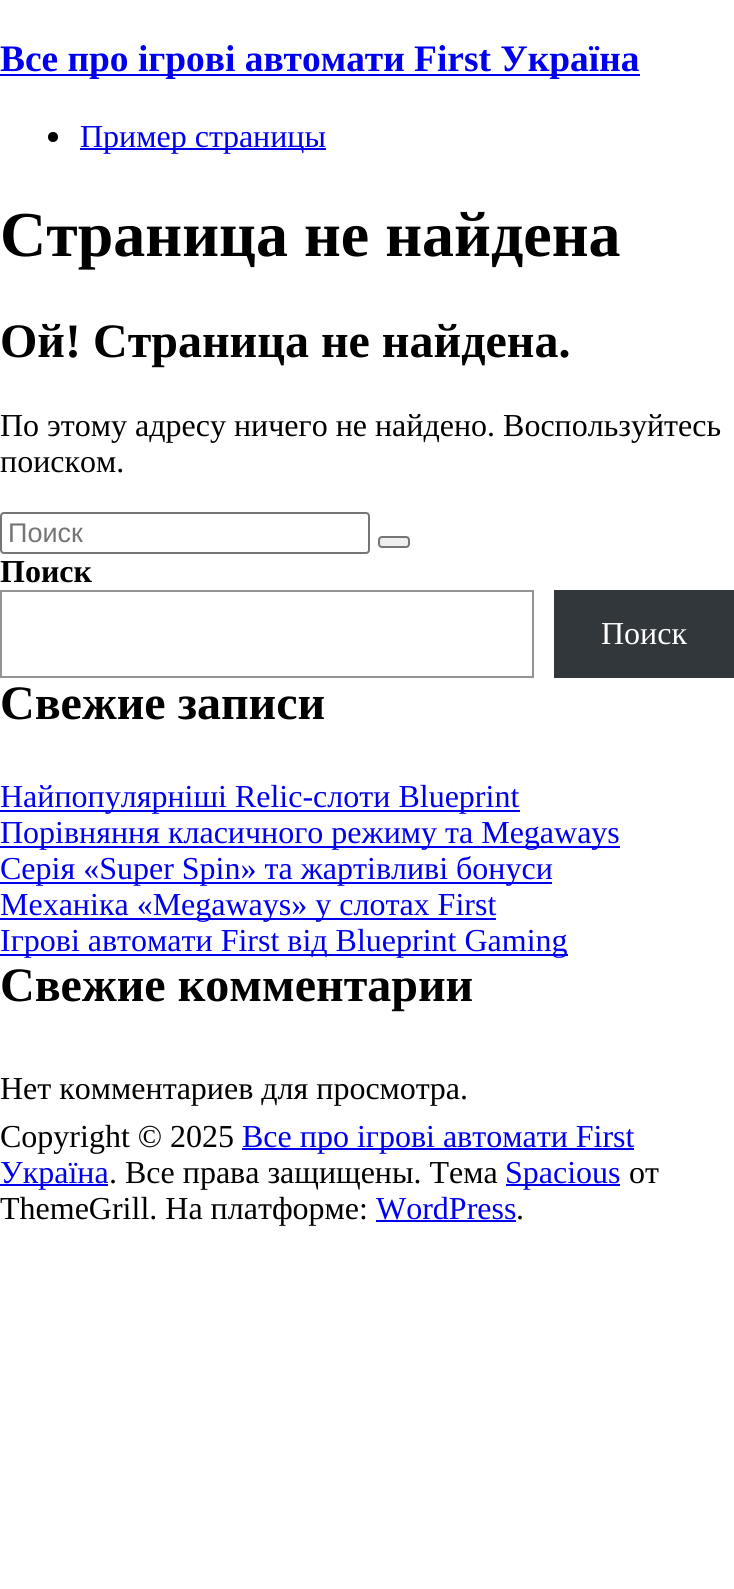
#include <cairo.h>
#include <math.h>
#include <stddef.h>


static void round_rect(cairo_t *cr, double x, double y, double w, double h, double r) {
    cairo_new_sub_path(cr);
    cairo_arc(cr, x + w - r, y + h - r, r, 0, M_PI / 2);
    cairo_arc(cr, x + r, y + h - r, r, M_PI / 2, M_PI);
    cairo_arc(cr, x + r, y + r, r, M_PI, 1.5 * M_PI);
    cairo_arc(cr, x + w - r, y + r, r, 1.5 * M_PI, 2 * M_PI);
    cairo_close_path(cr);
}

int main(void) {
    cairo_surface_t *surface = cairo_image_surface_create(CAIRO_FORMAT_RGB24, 734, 1589);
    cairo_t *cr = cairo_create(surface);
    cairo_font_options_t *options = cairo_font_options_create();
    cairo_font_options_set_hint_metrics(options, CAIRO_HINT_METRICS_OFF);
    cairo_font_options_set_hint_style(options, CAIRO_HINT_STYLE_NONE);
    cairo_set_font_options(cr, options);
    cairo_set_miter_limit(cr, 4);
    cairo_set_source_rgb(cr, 1, 1, 1);
    cairo_paint(cr);
    cairo_set_source_rgb(cr, 0, 0, 0.933);
    cairo_rectangle(cr, 0, 74, 640, 2);
    cairo_fill(cr);
    cairo_select_font_face(cr, "Liberation Serif", CAIRO_FONT_SLANT_NORMAL, CAIRO_FONT_WEIGHT_BOLD);
    cairo_set_font_size(cr, 37.4);
    cairo_move_to(cr, 0, 71);
    cairo_show_text(cr, "Все про ігрові автомати First Україна");
    cairo_set_source_rgb(cr, 0, 0, 0);
    cairo_new_path(cr);
    cairo_arc(cr, 53, 137, 5, 0, 2 * M_PI);
    cairo_fill(cr);
    cairo_set_source_rgb(cr, 0, 0, 0.933);
    cairo_rectangle(cr, 80, 148, 246, 2);
    cairo_fill(cr);
    cairo_select_font_face(cr, "Liberation Serif", CAIRO_FONT_SLANT_NORMAL, CAIRO_FONT_WEIGHT_NORMAL);
    cairo_set_font_size(cr, 32);
    cairo_move_to(cr, 80, 147);
    cairo_show_text(cr, "Пример страницы");
    cairo_select_font_face(cr, "Liberation Serif", CAIRO_FONT_SLANT_NORMAL, CAIRO_FONT_WEIGHT_BOLD);
    cairo_set_font_size(cr, 64);
    cairo_set_source_rgb(cr, 0, 0, 0);
    cairo_move_to(cr, 0, 256);
    cairo_show_text(cr, "Страница не найдена");
    cairo_set_font_size(cr, 48);
    cairo_move_to(cr, 0, 357);
    cairo_show_text(cr, "Ой! Страница не найдена.");
    cairo_select_font_face(cr, "Liberation Serif", CAIRO_FONT_SLANT_NORMAL, CAIRO_FONT_WEIGHT_NORMAL);
    cairo_set_font_size(cr, 32);
    cairo_move_to(cr, 0, 436);
    cairo_show_text(cr, "По этому адресу ничего не найдено. Воспользуйтесь");
    cairo_move_to(cr, 0, 472);
    cairo_show_text(cr, "поиском.");
    round_rect(cr, 1, 513, 368, 40, 3);
    cairo_set_source_rgb(cr, 0.463, 0.463, 0.463);
    cairo_stroke(cr);
    cairo_select_font_face(cr, "Liberation Sans", CAIRO_FONT_SLANT_NORMAL, CAIRO_FONT_WEIGHT_NORMAL);
    cairo_set_font_size(cr, 27);
    cairo_set_source_rgb(cr, 0.459, 0.459, 0.459);
    cairo_move_to(cr, 8, 542);
    cairo_show_text(cr, "Поиск");
    cairo_set_source_rgb(cr, 0.937, 0.937, 0.937);
    round_rect(cr, 379, 537, 30, 10, 3);
    cairo_fill_preserve(cr);
    cairo_set_source_rgb(cr, 0.463, 0.463, 0.463);
    cairo_stroke(cr);
    cairo_select_font_face(cr, "Liberation Serif", CAIRO_FONT_SLANT_NORMAL, CAIRO_FONT_WEIGHT_BOLD);
    cairo_set_font_size(cr, 32);
    cairo_set_source_rgb(cr, 0, 0, 0);
    cairo_move_to(cr, 0, 582);
    cairo_show_text(cr, "Поиск");
    cairo_rectangle(cr, 1, 591, 532, 86);
    cairo_set_source_rgb(cr, 0.58, 0.58, 0.58);
    cairo_stroke(cr);
    cairo_set_source_rgb(cr, 0.196, 0.216, 0.235);
    cairo_rectangle(cr, 554, 590, 180, 88);
    cairo_fill(cr);
    cairo_select_font_face(cr, "Liberation Serif", CAIRO_FONT_SLANT_NORMAL, CAIRO_FONT_WEIGHT_NORMAL);
    cairo_set_source_rgb(cr, 1, 1, 1);
    cairo_move_to(cr, 601, 644);
    cairo_show_text(cr, "Поиск");
    cairo_select_font_face(cr, "Liberation Serif", CAIRO_FONT_SLANT_NORMAL, CAIRO_FONT_WEIGHT_BOLD);
    cairo_set_font_size(cr, 48);
    cairo_set_source_rgb(cr, 0, 0, 0);
    cairo_move_to(cr, 0, 719);
    cairo_show_text(cr, "Свежие записи");
    cairo_set_source_rgb(cr, 0, 0, 0.933);
    cairo_rectangle(cr, 0, 810, 520, 2);
    cairo_fill(cr);
    cairo_select_font_face(cr, "Liberation Serif", CAIRO_FONT_SLANT_NORMAL, CAIRO_FONT_WEIGHT_NORMAL);
    cairo_set_font_size(cr, 32);
    cairo_move_to(cr, 0, 807);
    cairo_show_text(cr, "Найпопулярніші Relic-слоти Blueprint");
    cairo_rectangle(cr, 0, 846, 620, 2);
    cairo_fill(cr);
    cairo_move_to(cr, 0, 843);
    cairo_show_text(cr, "Порівняння класичного режиму та Megaways");
    cairo_rectangle(cr, 0, 882, 552, 2);
    cairo_fill(cr);
    cairo_move_to(cr, 0, 879);
    cairo_show_text(cr, "Серія «Super Spin» та жартівливі бонуси");
    cairo_rectangle(cr, 0, 918, 496, 2);
    cairo_fill(cr);
    cairo_move_to(cr, 0, 915);
    cairo_show_text(cr, "Механіка «Megaways» у слотах First");
    cairo_rectangle(cr, 0, 954, 568, 2);
    cairo_fill(cr);
    cairo_move_to(cr, 0, 951);
    cairo_show_text(cr, "Ігрові автомати First від Blueprint Gaming");
    cairo_select_font_face(cr, "Liberation Serif", CAIRO_FONT_SLANT_NORMAL, CAIRO_FONT_WEIGHT_BOLD);
    cairo_set_font_size(cr, 48);
    cairo_set_source_rgb(cr, 0, 0, 0);
    cairo_move_to(cr, 0, 1001);
    cairo_show_text(cr, "Свежие комментарии");
    cairo_select_font_face(cr, "Liberation Serif", CAIRO_FONT_SLANT_NORMAL, CAIRO_FONT_WEIGHT_NORMAL);
    cairo_set_font_size(cr, 32);
    cairo_move_to(cr, 0, 1099);
    cairo_show_text(cr, "Нет комментариев для просмотра.");
    cairo_move_to(cr, 0, 1147);
    cairo_show_text(cr, "Copyright © 2025");
    cairo_set_source_rgb(cr, 0, 0, 0.933);
    cairo_rectangle(cr, 242, 1148, 392, 2);
    cairo_fill(cr);
    cairo_move_to(cr, 242, 1147);
    cairo_show_text(cr, "Все про ігрові автомати First");
    cairo_rectangle(cr, 0, 1184, 108, 2);
    cairo_fill(cr);
    cairo_move_to(cr, 0, 1183);
    cairo_show_text(cr, "Україна");
    cairo_set_source_rgb(cr, 0, 0, 0);
    cairo_move_to(cr, 109, 1183);
    cairo_show_text(cr, ". Все права защищены. Тема");
    cairo_set_source_rgb(cr, 0, 0, 0.933);
    cairo_rectangle(cr, 506, 1184, 114, 2);
    cairo_fill(cr);
    cairo_move_to(cr, 505, 1183);
    cairo_show_text(cr, "Spacious");
    cairo_set_source_rgb(cr, 0, 0, 0);
    cairo_move_to(cr, 629, 1183);
    cairo_show_text(cr, "от");
    cairo_move_to(cr, 0, 1219);
    cairo_show_text(cr, "ThemeGrill. На платформе:");
    cairo_set_source_rgb(cr, 0, 0, 0.933);
    cairo_move_to(cr, 376, 1219);
    cairo_show_text(cr, "WordPress");
    cairo_rectangle(cr, 376, 1220, 140, 2);
    cairo_fill(cr);
    cairo_set_source_rgb(cr, 0, 0, 0);
    cairo_move_to(cr, 516, 1219);
    cairo_show_text(cr, ".");
    cairo_surface_write_to_png(surface, "page.png");
    cairo_font_options_destroy(options);
    cairo_destroy(cr);
    cairo_surface_destroy(surface);
    return 0;
}
